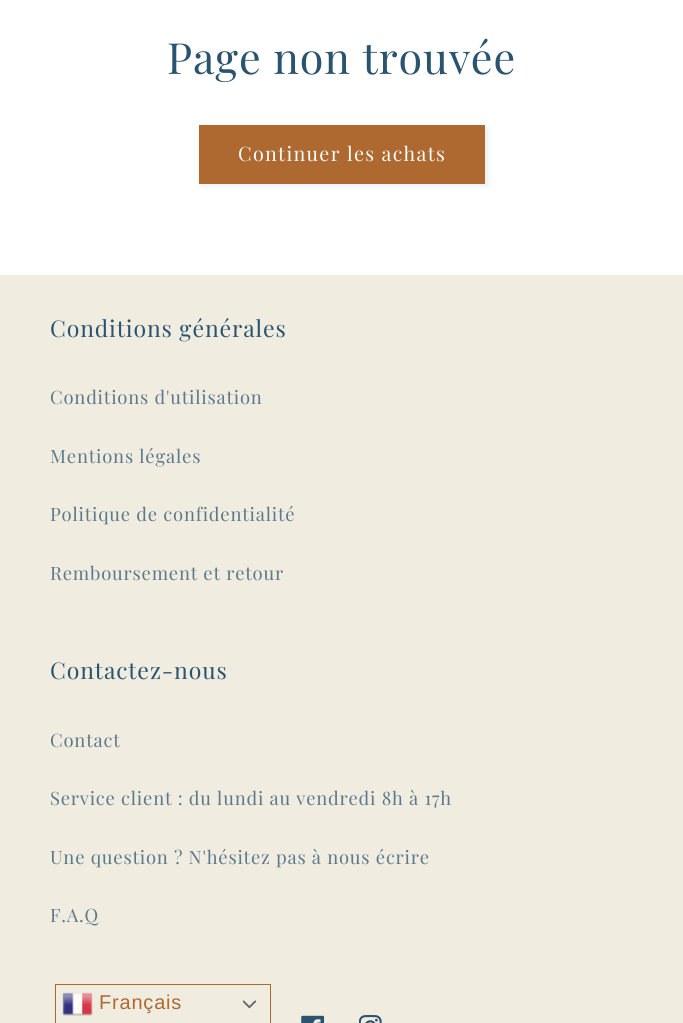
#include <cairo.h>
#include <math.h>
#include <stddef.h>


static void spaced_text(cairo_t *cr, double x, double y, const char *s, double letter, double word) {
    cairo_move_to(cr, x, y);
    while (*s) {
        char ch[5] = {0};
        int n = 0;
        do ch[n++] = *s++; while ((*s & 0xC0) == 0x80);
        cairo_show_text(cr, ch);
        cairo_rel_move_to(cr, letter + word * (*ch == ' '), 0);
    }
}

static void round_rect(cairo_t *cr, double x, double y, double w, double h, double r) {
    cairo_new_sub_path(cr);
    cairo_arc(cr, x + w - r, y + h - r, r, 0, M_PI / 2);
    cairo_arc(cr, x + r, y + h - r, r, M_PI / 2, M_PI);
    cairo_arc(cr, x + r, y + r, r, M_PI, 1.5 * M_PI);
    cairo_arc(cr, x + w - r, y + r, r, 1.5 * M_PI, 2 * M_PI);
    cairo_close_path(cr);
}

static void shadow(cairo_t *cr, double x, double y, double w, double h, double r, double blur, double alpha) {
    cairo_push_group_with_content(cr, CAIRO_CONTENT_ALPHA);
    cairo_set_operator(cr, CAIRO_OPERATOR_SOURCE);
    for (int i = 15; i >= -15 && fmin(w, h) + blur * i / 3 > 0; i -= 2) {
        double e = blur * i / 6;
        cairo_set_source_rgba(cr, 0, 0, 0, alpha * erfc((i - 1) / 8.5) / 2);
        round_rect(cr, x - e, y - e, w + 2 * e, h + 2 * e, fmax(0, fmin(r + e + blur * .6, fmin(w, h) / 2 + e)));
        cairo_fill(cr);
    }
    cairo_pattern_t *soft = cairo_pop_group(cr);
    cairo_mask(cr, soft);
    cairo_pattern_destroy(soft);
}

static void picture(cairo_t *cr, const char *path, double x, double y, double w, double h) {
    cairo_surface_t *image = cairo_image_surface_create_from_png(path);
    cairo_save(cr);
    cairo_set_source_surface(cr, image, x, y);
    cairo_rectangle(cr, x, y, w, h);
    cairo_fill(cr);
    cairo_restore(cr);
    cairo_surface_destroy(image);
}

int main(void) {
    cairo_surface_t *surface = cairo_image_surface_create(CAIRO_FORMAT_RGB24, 683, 1023);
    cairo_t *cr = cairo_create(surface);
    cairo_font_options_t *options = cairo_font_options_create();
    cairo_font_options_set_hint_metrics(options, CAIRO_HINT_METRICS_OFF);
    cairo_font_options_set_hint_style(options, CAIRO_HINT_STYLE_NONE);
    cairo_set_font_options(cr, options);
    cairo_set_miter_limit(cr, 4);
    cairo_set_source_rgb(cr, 1, 1, 1);
    cairo_paint(cr);
    cairo_select_font_face(cr, "Playfair Display", CAIRO_FONT_SLANT_NORMAL, CAIRO_FONT_WEIGHT_NORMAL);
    cairo_set_font_size(cr, 43);
    cairo_set_source_rgb(cr, 0.161, 0.325, 0.435);
    spaced_text(cr, 167, 74, "Page non trouvée", 0.9, 0);
    cairo_set_source_rgb(cr, 0.161, 0.325, 0.435);
    shadow(cr, 201, 128, 287, 58, 0, 3, 0.1);
    cairo_set_source_rgb(cr, 0.682, 0.412, 0.192);
    cairo_rectangle(cr, 199, 125, 286, 59);
    cairo_fill(cr);
    cairo_set_font_size(cr, 19.75);
    cairo_set_source_rgb(cr, 0.988, 0.988, 0.988);
    spaced_text(cr, 238, 161, "Continuer les achats", 1.3, 0);
    cairo_set_source_rgb(cr, 0.941, 0.922, 0.878);
    cairo_rectangle(cr, 0, 275, 683, 748);
    cairo_fill(cr);
    cairo_set_font_size(cr, 23);
    cairo_set_source_rgb(cr, 0.161, 0.325, 0.435);
    spaced_text(cr, 50, 337, "Conditions générales", 0.9, 0);
    cairo_set_font_size(cr, 18.4);
    cairo_set_source_rgb(cr, 0.357, 0.475, 0.545);
    spaced_text(cr, 50, 404, "Conditions d'utilisation", 0.8, 0);
    spaced_text(cr, 50, 463, "Mentions légales", 0.8, 0);
    spaced_text(cr, 50, 521, "Politique de confidentialité", 0.8, 0);
    spaced_text(cr, 50, 580, "Remboursement et retour", 0.8, 0);
    cairo_set_font_size(cr, 23);
    cairo_set_source_rgb(cr, 0.161, 0.325, 0.435);
    spaced_text(cr, 50, 679, "Contactez-nous", 0.9, 0);
    cairo_set_font_size(cr, 18.4);
    cairo_set_source_rgb(cr, 0.357, 0.475, 0.545);
    spaced_text(cr, 50, 747, "Contact", 0.8, 0);
    spaced_text(cr, 50, 805, "Service client : du lundi au vendredi 8h à 17h", 0.8, 0);
    spaced_text(cr, 50, 864, "Une question ? N'hésitez pas à nous écrire", 0.8, 0);
    spaced_text(cr, 50, 922, "F.A.Q", 0.8, 0);
    picture(cr, "img1.png", 301, 1015, 24, 8);
    picture(cr, "img2.png", 359, 1015, 23, 8);
    cairo_rectangle(cr, 55.5, 984.5, 215, 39);
    cairo_set_source_rgb(cr, 0.682, 0.412, 0.192);
    cairo_set_line_width(cr, 1);
    cairo_stroke(cr);
    picture(cr, "img3.png", 62, 992, 31, 24);
    cairo_select_font_face(cr, "Liberation Sans", CAIRO_FONT_SLANT_NORMAL, CAIRO_FONT_WEIGHT_NORMAL);
    cairo_set_font_size(cr, 20);
    spaced_text(cr, 99, 1009, "Français", 0.8, 0);
    picture(cr, "img4.png", 243, 1000, 13, 9);
    cairo_surface_write_to_png(surface, "page.png");
    cairo_font_options_destroy(options);
    cairo_destroy(cr);
    cairo_surface_destroy(surface);
    return 0;
}
